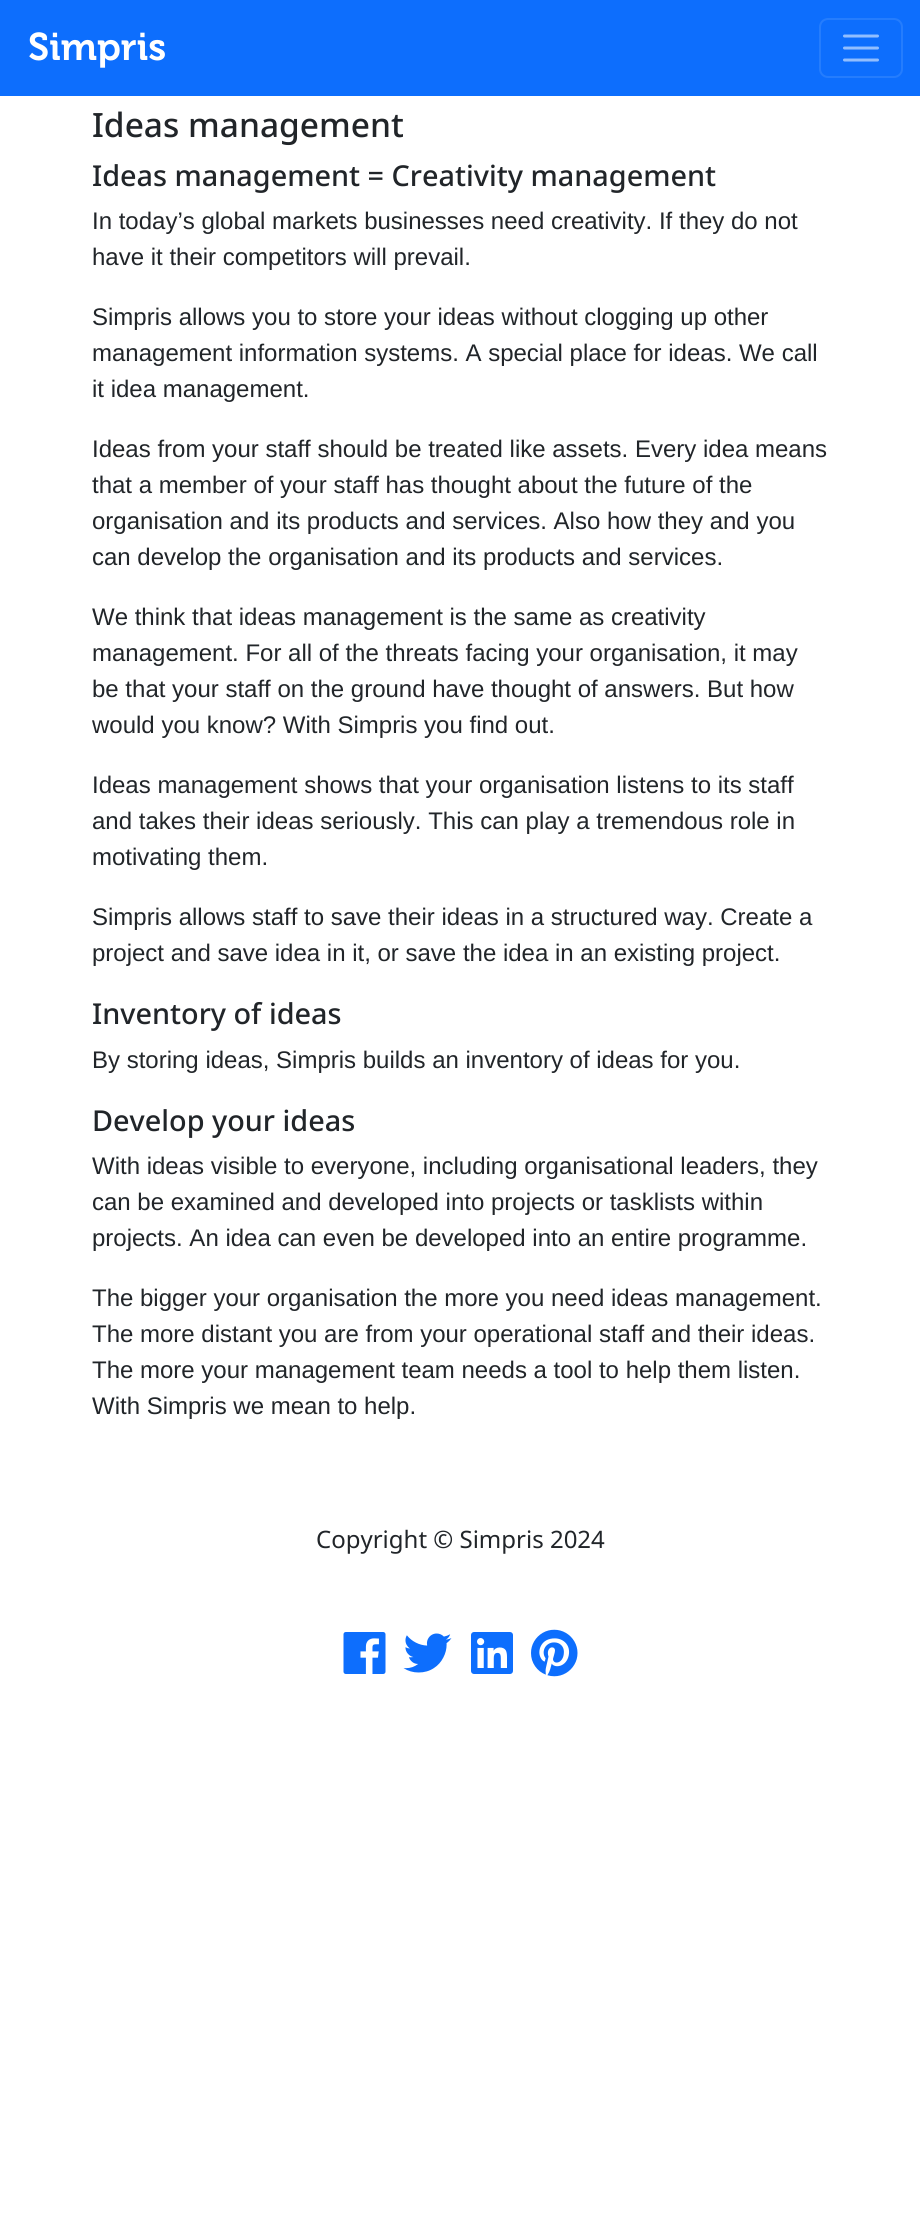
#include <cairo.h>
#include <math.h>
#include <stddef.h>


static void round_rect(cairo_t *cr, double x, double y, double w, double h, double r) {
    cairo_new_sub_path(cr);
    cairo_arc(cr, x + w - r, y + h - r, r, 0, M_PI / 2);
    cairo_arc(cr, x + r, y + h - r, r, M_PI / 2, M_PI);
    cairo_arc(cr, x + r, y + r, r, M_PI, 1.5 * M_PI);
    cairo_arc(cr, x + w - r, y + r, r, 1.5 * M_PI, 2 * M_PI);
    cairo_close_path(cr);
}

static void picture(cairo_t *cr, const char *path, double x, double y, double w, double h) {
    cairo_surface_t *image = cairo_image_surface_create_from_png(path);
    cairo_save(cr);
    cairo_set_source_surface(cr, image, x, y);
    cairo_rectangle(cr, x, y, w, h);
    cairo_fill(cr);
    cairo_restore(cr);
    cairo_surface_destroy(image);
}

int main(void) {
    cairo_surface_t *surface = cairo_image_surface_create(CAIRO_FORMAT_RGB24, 920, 2230);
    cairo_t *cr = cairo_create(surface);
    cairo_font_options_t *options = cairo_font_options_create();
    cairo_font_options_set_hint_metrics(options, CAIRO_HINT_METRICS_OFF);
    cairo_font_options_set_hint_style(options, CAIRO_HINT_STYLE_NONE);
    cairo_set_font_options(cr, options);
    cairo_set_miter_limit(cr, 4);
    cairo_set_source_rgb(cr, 1, 1, 1);
    cairo_paint(cr);
    cairo_set_source_rgb(cr, 0.051, 0.431, 0.992);
    cairo_rectangle(cr, 0, 0, 920, 96);
    cairo_fill(cr);
    cairo_select_font_face(cr, "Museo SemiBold", CAIRO_FONT_SLANT_NORMAL, CAIRO_FONT_WEIGHT_NORMAL);
    cairo_set_font_size(cr, 38.5);
    cairo_set_source_rgb(cr, 1, 1, 1);
    cairo_move_to(cr, 28, 60);
    cairo_show_text(cr, "Simpris");
    round_rect(cr, 820, 19, 82, 58, 8);
    cairo_set_source_rgb(cr, 0.145, 0.49, 0.992);
    cairo_stroke(cr);
    cairo_new_path(cr);
    cairo_move_to(cr, 844.5, 36);
    cairo_line_to(cr, 877.5, 36);
    cairo_move_to(cr, 844.5, 48);
    cairo_line_to(cr, 877.5, 48);
    cairo_move_to(cr, 844.5, 60);
    cairo_line_to(cr, 877.5, 60);
    cairo_set_source_rgb(cr, 0.573, 0.745, 0.996);
    cairo_set_line_width(cr, 3);
    cairo_set_line_cap(cr, CAIRO_LINE_CAP_ROUND);
    cairo_stroke(cr);
    cairo_select_font_face(cr, "Noto Sans Medium", CAIRO_FONT_SLANT_NORMAL, CAIRO_FONT_WEIGHT_NORMAL);
    cairo_set_font_size(cr, 33.5);
    cairo_set_source_rgb(cr, 0.129, 0.145, 0.161);
    cairo_move_to(cr, 92, 137);
    cairo_show_text(cr, "Ideas management");
    cairo_set_font_size(cr, 28.8);
    cairo_move_to(cr, 92, 186);
    cairo_show_text(cr, "Ideas management = Creativity management");
    cairo_select_font_face(cr, "Liberation Sans", CAIRO_FONT_SLANT_NORMAL, CAIRO_FONT_WEIGHT_NORMAL);
    cairo_set_font_size(cr, 24);
    cairo_move_to(cr, 92, 229);
    cairo_show_text(cr, "In today’s global markets businesses need creativity. If they do not");
    cairo_move_to(cr, 92, 265);
    cairo_show_text(cr, "have it their competitors will prevail.");
    cairo_move_to(cr, 92, 325);
    cairo_show_text(cr, "Simpris allows you to store your ideas without clogging up other");
    cairo_move_to(cr, 92, 361);
    cairo_show_text(cr, "management information systems. A special place for ideas. We call");
    cairo_move_to(cr, 92, 397);
    cairo_show_text(cr, "it idea management.");
    cairo_move_to(cr, 92, 457);
    cairo_show_text(cr, "Ideas from your staff should be treated like assets. Every idea means");
    cairo_move_to(cr, 92, 493);
    cairo_show_text(cr, "that a member of your staff has thought about the future of the");
    cairo_move_to(cr, 92, 529);
    cairo_show_text(cr, "organisation and its products and services. Also how they and you");
    cairo_move_to(cr, 92, 565);
    cairo_show_text(cr, "can develop the organisation and its products and services.");
    cairo_move_to(cr, 92, 625);
    cairo_show_text(cr, "We think that ideas management is the same as creativity");
    cairo_move_to(cr, 92, 661);
    cairo_show_text(cr, "management. For all of the threats facing your organisation, it may");
    cairo_move_to(cr, 92, 697);
    cairo_show_text(cr, "be that your staff on the ground have thought of answers. But how");
    cairo_move_to(cr, 92, 733);
    cairo_show_text(cr, "would you know? With Simpris you find out.");
    cairo_move_to(cr, 92, 793);
    cairo_show_text(cr, "Ideas management shows that your organisation listens to its staff");
    cairo_move_to(cr, 92, 829);
    cairo_show_text(cr, "and takes their ideas seriously. This can play a tremendous role in");
    cairo_move_to(cr, 92, 865);
    cairo_show_text(cr, "motivating them.");
    cairo_move_to(cr, 92, 925);
    cairo_show_text(cr, "Simpris allows staff to save their ideas in a structured way. Create a");
    cairo_move_to(cr, 92, 961);
    cairo_show_text(cr, "project and save idea in it, or save the idea in an existing project.");
    cairo_select_font_face(cr, "Noto Sans Medium", CAIRO_FONT_SLANT_NORMAL, CAIRO_FONT_WEIGHT_NORMAL);
    cairo_set_font_size(cr, 28.8);
    cairo_move_to(cr, 92, 1024);
    cairo_show_text(cr, "Inventory of ideas");
    cairo_select_font_face(cr, "Liberation Sans", CAIRO_FONT_SLANT_NORMAL, CAIRO_FONT_WEIGHT_NORMAL);
    cairo_set_font_size(cr, 24);
    cairo_move_to(cr, 92, 1068);
    cairo_show_text(cr, "By storing ideas, Simpris builds an inventory of ideas for you.");
    cairo_select_font_face(cr, "Noto Sans Medium", CAIRO_FONT_SLANT_NORMAL, CAIRO_FONT_WEIGHT_NORMAL);
    cairo_set_font_size(cr, 28.8);
    cairo_move_to(cr, 92, 1131);
    cairo_show_text(cr, "Develop your ideas");
    cairo_select_font_face(cr, "Liberation Sans", CAIRO_FONT_SLANT_NORMAL, CAIRO_FONT_WEIGHT_NORMAL);
    cairo_set_font_size(cr, 24);
    cairo_move_to(cr, 92, 1174);
    cairo_show_text(cr, "With ideas visible to everyone, including organisational leaders, they");
    cairo_move_to(cr, 92, 1210);
    cairo_show_text(cr, "can be examined and developed into projects or tasklists within");
    cairo_move_to(cr, 92, 1246);
    cairo_show_text(cr, "projects. An idea can even be developed into an entire programme.");
    cairo_move_to(cr, 92, 1306);
    cairo_show_text(cr, "The bigger your organisation the more you need ideas management.");
    cairo_move_to(cr, 92, 1342);
    cairo_show_text(cr, "The more distant you are from your operational staff and their ideas.");
    cairo_move_to(cr, 92, 1378);
    cairo_show_text(cr, "The more your management team needs a tool to help them listen.");
    cairo_move_to(cr, 92, 1414);
    cairo_show_text(cr, "With Simpris we mean to help.");
    cairo_select_font_face(cr, "Noto Sans", CAIRO_FONT_SLANT_NORMAL, CAIRO_FONT_WEIGHT_NORMAL);
    cairo_move_to(cr, 316, 1548);
    cairo_show_text(cr, "Copyright © Simpris 2024");
    picture(cr, "img1.png", 343, 1632, 43, 42);
    picture(cr, "img2.png", 403, 1633, 49, 40);
    picture(cr, "img3.png", 471, 1632, 42, 42);
    picture(cr, "img4.png", 531, 1629, 47, 48);
    cairo_surface_write_to_png(surface, "page.png");
    cairo_font_options_destroy(options);
    cairo_destroy(cr);
    cairo_surface_destroy(surface);
    return 0;
}
